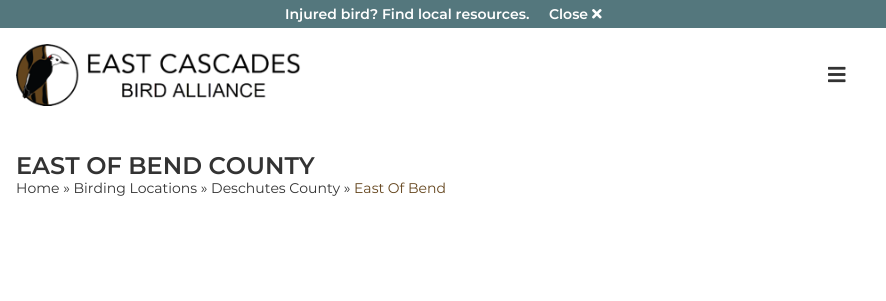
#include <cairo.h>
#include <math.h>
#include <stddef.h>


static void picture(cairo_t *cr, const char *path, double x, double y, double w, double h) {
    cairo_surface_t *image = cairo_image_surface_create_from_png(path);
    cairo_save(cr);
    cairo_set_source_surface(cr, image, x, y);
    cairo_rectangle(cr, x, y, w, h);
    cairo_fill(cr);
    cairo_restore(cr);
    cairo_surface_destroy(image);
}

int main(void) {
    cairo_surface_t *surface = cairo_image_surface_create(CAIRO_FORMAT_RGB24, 886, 301);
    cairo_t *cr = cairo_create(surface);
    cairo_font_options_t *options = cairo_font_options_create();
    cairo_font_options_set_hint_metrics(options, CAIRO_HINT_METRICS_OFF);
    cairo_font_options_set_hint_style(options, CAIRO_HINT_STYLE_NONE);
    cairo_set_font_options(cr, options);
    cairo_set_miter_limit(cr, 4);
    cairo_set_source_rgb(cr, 1, 1, 1);
    cairo_paint(cr);
    cairo_set_source_rgb(cr, 0.329, 0.467, 0.49);
    cairo_rectangle(cr, 0, 0, 886, 28);
    cairo_fill(cr);
    cairo_select_font_face(cr, "Montserrat SemiBold", CAIRO_FONT_SLANT_NORMAL, CAIRO_FONT_WEIGHT_NORMAL);
    cairo_set_font_size(cr, 14);
    cairo_set_source_rgb(cr, 1, 1, 1);
    cairo_move_to(cr, 285, 19);
    cairo_show_text(cr, "Injured bird? Find local resources.");
    cairo_move_to(cr, 549, 19);
    cairo_show_text(cr, "Close");
    picture(cr, "img1.png", 592, 9, 10, 10);
    picture(cr, "img2.png", 16, 44, 285, 62);
    picture(cr, "img3.png", 828, 66, 18, 17);
    cairo_set_font_size(cr, 24);
    cairo_set_source_rgb(cr, 0.2, 0.2, 0.2);
    cairo_move_to(cr, 16, 174);
    cairo_show_text(cr, "EAST OF BEND COUNTY");
    cairo_select_font_face(cr, "Montserrat", CAIRO_FONT_SLANT_NORMAL, CAIRO_FONT_WEIGHT_NORMAL);
    cairo_set_font_size(cr, 14);
    cairo_move_to(cr, 16, 193);
    cairo_show_text(cr, "Home » Birding Locations » Deschutes County »");
    cairo_set_source_rgb(cr, 0.392, 0.271, 0.114);
    cairo_move_to(cr, 354, 193);
    cairo_show_text(cr, "East Of Bend");
    cairo_surface_write_to_png(surface, "page.png");
    cairo_font_options_destroy(options);
    cairo_destroy(cr);
    cairo_surface_destroy(surface);
    return 0;
}
